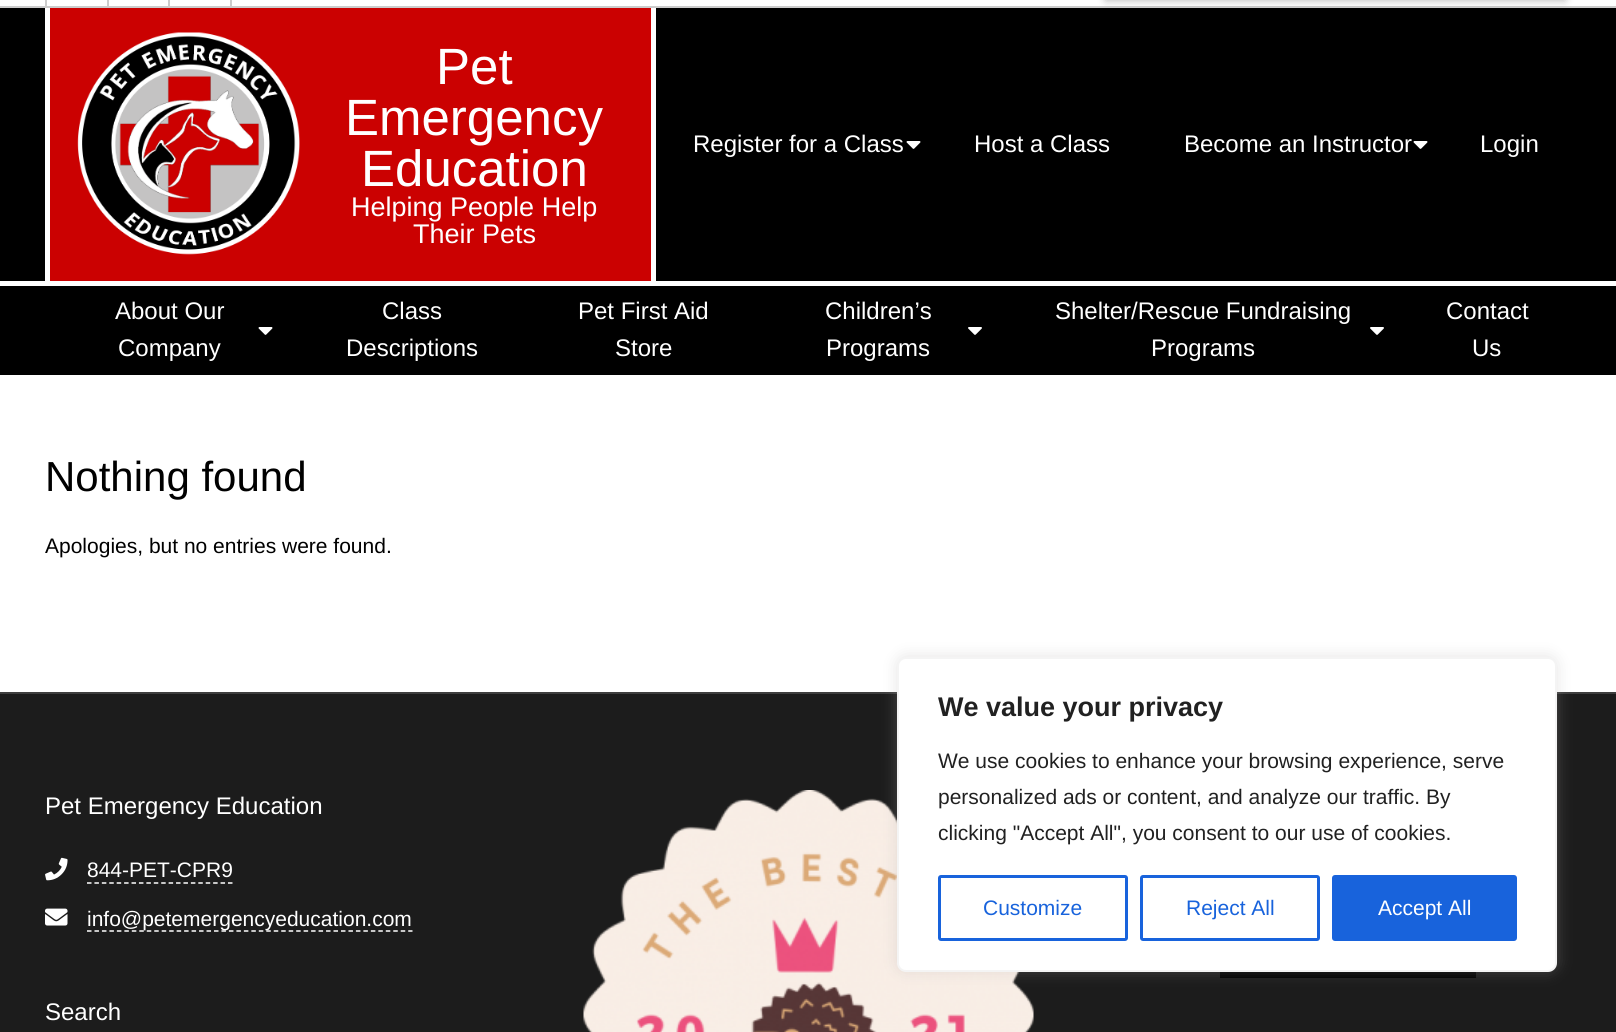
#include <cairo.h>
#include <math.h>
#include <stddef.h>


static void round_rect(cairo_t *cr, double x, double y, double w, double h, double r) {
    cairo_new_sub_path(cr);
    cairo_arc(cr, x + w - r, y + h - r, r, 0, M_PI / 2);
    cairo_arc(cr, x + r, y + h - r, r, M_PI / 2, M_PI);
    cairo_arc(cr, x + r, y + r, r, M_PI, 1.5 * M_PI);
    cairo_arc(cr, x + w - r, y + r, r, 1.5 * M_PI, 2 * M_PI);
    cairo_close_path(cr);
}

static void shadow(cairo_t *cr, double x, double y, double w, double h, double r, double blur, double alpha) {
    cairo_push_group_with_content(cr, CAIRO_CONTENT_ALPHA);
    cairo_set_operator(cr, CAIRO_OPERATOR_SOURCE);
    for (int i = 15; i >= -15 && fmin(w, h) + blur * i / 3 > 0; i -= 2) {
        double e = blur * i / 6;
        cairo_set_source_rgba(cr, 0, 0, 0, alpha * erfc((i - 1) / 8.5) / 2);
        round_rect(cr, x - e, y - e, w + 2 * e, h + 2 * e, fmax(0, fmin(r + e + blur * .6, fmin(w, h) / 2 + e)));
        cairo_fill(cr);
    }
    cairo_pattern_t *soft = cairo_pop_group(cr);
    cairo_mask(cr, soft);
    cairo_pattern_destroy(soft);
}

static void picture(cairo_t *cr, const char *path, double x, double y, double w, double h) {
    cairo_surface_t *image = cairo_image_surface_create_from_png(path);
    cairo_save(cr);
    cairo_set_source_surface(cr, image, x, y);
    cairo_rectangle(cr, x, y, w, h);
    cairo_fill(cr);
    cairo_restore(cr);
    cairo_surface_destroy(image);
}

int main(void) {
    cairo_surface_t *surface = cairo_image_surface_create(CAIRO_FORMAT_RGB24, 1616, 1032);
    cairo_t *cr = cairo_create(surface);
    cairo_font_options_t *options = cairo_font_options_create();
    cairo_font_options_set_hint_metrics(options, CAIRO_HINT_METRICS_OFF);
    cairo_font_options_set_hint_style(options, CAIRO_HINT_STYLE_NONE);
    cairo_set_font_options(cr, options);
    cairo_set_miter_limit(cr, 4);
    cairo_set_source_rgb(cr, 1, 1, 1);
    cairo_paint(cr);
    cairo_set_source_rgb(cr, 0.8, 0.8, 0.8);
    cairo_rectangle(cr, 0, 6, 1616, 2);
    cairo_fill(cr);
    cairo_rectangle(cr, 45, 0, 2, 6);
    cairo_fill(cr);
    cairo_rectangle(cr, 107, 0, 2, 6);
    cairo_fill(cr);
    cairo_rectangle(cr, 230, 0, 2, 6);
    cairo_fill(cr);
    cairo_rectangle(cr, 168, 0, 2, 6);
    cairo_fill(cr);
    cairo_set_source_rgb(cr, 0, 0, 0);
    shadow(cr, 1106, -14, 459, 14, 0, 4.5, 0.3);
    cairo_set_source_rgb(cr, 0, 0, 0);
    cairo_rectangle(cr, 0, 8, 1616, 273);
    cairo_fill(cr);
    cairo_set_source_rgb(cr, 0.796, 0.004, 0.004);
    cairo_rectangle(cr, 50, 8, 601, 273);
    cairo_fill(cr);
    cairo_set_source_rgb(cr, 1, 1, 1);
    cairo_rectangle(cr, 651, 8, 5, 273);
    cairo_fill(cr);
    cairo_rectangle(cr, 45, 8, 5, 273);
    cairo_fill(cr);
    picture(cr, "img1.png", 77, 32, 223, 223);
    cairo_select_font_face(cr, "Liberation Sans", CAIRO_FONT_SLANT_NORMAL, CAIRO_FONT_WEIGHT_NORMAL);
    cairo_set_font_size(cr, 51);
    cairo_move_to(cr, 436, 84);
    cairo_show_text(cr, "Pet");
    cairo_move_to(cr, 345, 135);
    cairo_show_text(cr, "Emergency");
    cairo_move_to(cr, 361, 186);
    cairo_show_text(cr, "Education");
    cairo_set_font_size(cr, 27);
    cairo_move_to(cr, 351, 216);
    cairo_show_text(cr, "Helping People Help");
    cairo_move_to(cr, 413, 243);
    cairo_show_text(cr, "Their Pets");
    cairo_set_font_size(cr, 24);
    cairo_move_to(cr, 693, 152);
    cairo_show_text(cr, "Register for a Class");
    picture(cr, "img2.png", 906, 141, 15, 8);
    cairo_move_to(cr, 974, 152);
    cairo_show_text(cr, "Host a Class");
    cairo_move_to(cr, 1184, 152);
    cairo_show_text(cr, "Become an Instructor");
    picture(cr, "img2.png", 1413, 141, 15, 8);
    cairo_move_to(cr, 1480, 152);
    cairo_show_text(cr, "Login");
    cairo_set_source_rgb(cr, 0, 0, 0);
    cairo_rectangle(cr, 0, 286, 1616, 89);
    cairo_fill(cr);
    cairo_set_source_rgb(cr, 1, 1, 1);
    cairo_move_to(cr, 115, 319);
    cairo_show_text(cr, "About Our");
    picture(cr, "img2.png", 258, 327, 15, 8);
    cairo_move_to(cr, 118, 356);
    cairo_show_text(cr, "Company");
    cairo_move_to(cr, 382, 319);
    cairo_show_text(cr, "Class");
    cairo_move_to(cr, 346, 356);
    cairo_show_text(cr, "Descriptions");
    cairo_move_to(cr, 578, 319);
    cairo_show_text(cr, "Pet First Aid");
    cairo_move_to(cr, 615, 356);
    cairo_show_text(cr, "Store");
    cairo_move_to(cr, 825, 319);
    cairo_show_text(cr, "Children’s");
    picture(cr, "img3.png", 968, 327, 14, 8);
    cairo_move_to(cr, 826, 356);
    cairo_show_text(cr, "Programs");
    cairo_move_to(cr, 1055, 319);
    cairo_show_text(cr, "Shelter/Rescue Fundraising");
    picture(cr, "img3.png", 1370, 327, 14, 8);
    cairo_move_to(cr, 1151, 356);
    cairo_show_text(cr, "Programs");
    cairo_move_to(cr, 1446, 319);
    cairo_show_text(cr, "Contact");
    cairo_move_to(cr, 1472, 356);
    cairo_show_text(cr, "Us");
    cairo_set_font_size(cr, 42);
    cairo_set_source_rgb(cr, 0, 0, 0);
    cairo_move_to(cr, 45, 491);
    cairo_show_text(cr, "Nothing found");
    cairo_set_font_size(cr, 21);
    cairo_move_to(cr, 45, 553);
    cairo_show_text(cr, "Apologies, but no entries were found.");
    cairo_set_source_rgb(cr, 0.11, 0.11, 0.11);
    cairo_rectangle(cr, 0, 694, 1616, 338);
    cairo_fill(cr);
    cairo_set_source_rgb(cr, 0.243, 0.243, 0.243);
    cairo_rectangle(cr, 0, 692, 1616, 2);
    cairo_fill(cr);
    cairo_set_font_size(cr, 24);
    cairo_set_source_rgb(cr, 1, 1, 1);
    cairo_move_to(cr, 45, 814);
    cairo_show_text(cr, "Pet Emergency Education");
    picture(cr, "img4.png", 45, 857, 23, 24);
    cairo_set_font_size(cr, 21);
    cairo_move_to(cr, 87, 877);
    cairo_show_text(cr, "844-PET-CPR9");
    cairo_new_path(cr);
    cairo_move_to(cr, 87, 883);
    cairo_line_to(cr, 232.5, 883);
    cairo_set_line_width(cr, 1.5);
    cairo_set_dash(cr, (double[]){4.5, 2.92}, 2, 0);
    cairo_stroke(cr);
    picture(cr, "img5.png", 45, 908, 23, 18);
    cairo_new_path(cr);
    cairo_move_to(cr, 87, 931);
    cairo_line_to(cr, 412.5, 931);
    cairo_set_dash(cr, (double[]){4.5, 2.97}, 2, 0);
    cairo_stroke(cr);
    cairo_move_to(cr, 87, 926);
    cairo_show_text(cr, "info@petemergencyeducation.com");
    cairo_set_font_size(cr, 24);
    cairo_move_to(cr, 45, 1020);
    cairo_show_text(cr, "Search");
    picture(cr, "img6.png", 583, 790, 451, 242);
    cairo_set_source_rgb(cr, 0, 0, 0);
    cairo_rectangle(cr, 1220, 972, 256, 6);
    cairo_fill(cr);
    cairo_set_source_rgb(cr, 0.675, 0.671, 0.671);
    shadow(cr, 897, 656, 660, 315, 9, 7.5, 0.3);
    cairo_set_source_rgb(cr, 1, 1, 1);
    round_rect(cr, 898, 658, 658, 313, 8);
    cairo_fill_preserve(cr);
    cairo_set_source_rgb(cr, 0.957, 0.957, 0.957);
    cairo_set_line_width(cr, 2);
    cairo_set_dash(cr, NULL, 0, 0);
    cairo_stroke(cr);
    cairo_select_font_face(cr, "Liberation Sans", CAIRO_FONT_SLANT_NORMAL, CAIRO_FONT_WEIGHT_BOLD);
    cairo_set_font_size(cr, 27);
    cairo_set_source_rgb(cr, 0.129, 0.129, 0.129);
    cairo_move_to(cr, 938, 716);
    cairo_show_text(cr, "We value your privacy");
    cairo_select_font_face(cr, "Liberation Sans", CAIRO_FONT_SLANT_NORMAL, CAIRO_FONT_WEIGHT_NORMAL);
    cairo_set_font_size(cr, 21);
    cairo_move_to(cr, 938, 768);
    cairo_show_text(cr, "We use cookies to enhance your browsing experience, serve");
    cairo_move_to(cr, 938, 804);
    cairo_show_text(cr, "personalized ads or content, and analyze our traffic. By");
    cairo_move_to(cr, 938, 840);
    cairo_show_text(cr, "clicking \"Accept All\", you consent to our use of cookies.");
    round_rect(cr, 939.5, 876.5, 187, 63, 1.5);
    cairo_set_source_rgb(cr, 0.094, 0.388, 0.863);
    cairo_set_line_width(cr, 3);
    cairo_stroke(cr);
    cairo_move_to(cr, 983, 915);
    cairo_show_text(cr, "Customize");
    round_rect(cr, 1141.5, 876.5, 177, 63, 1.5);
    cairo_stroke(cr);
    cairo_move_to(cr, 1186, 915);
    cairo_show_text(cr, "Reject All");
    round_rect(cr, 1333.5, 876.5, 182, 63, 1.5);
    cairo_fill_preserve(cr);
    cairo_stroke(cr);
    cairo_set_source_rgb(cr, 1, 1, 1);
    cairo_move_to(cr, 1378, 915);
    cairo_show_text(cr, "Accept All");
    cairo_surface_write_to_png(surface, "page.png");
    cairo_font_options_destroy(options);
    cairo_destroy(cr);
    cairo_surface_destroy(surface);
    return 0;
}
